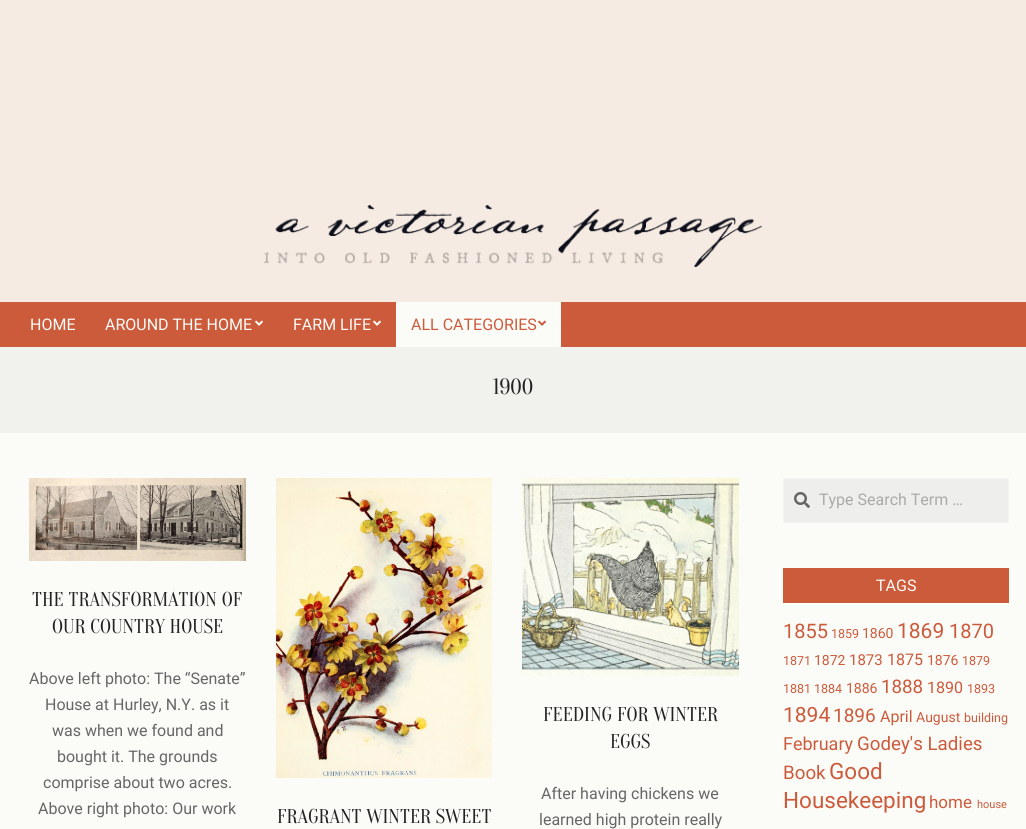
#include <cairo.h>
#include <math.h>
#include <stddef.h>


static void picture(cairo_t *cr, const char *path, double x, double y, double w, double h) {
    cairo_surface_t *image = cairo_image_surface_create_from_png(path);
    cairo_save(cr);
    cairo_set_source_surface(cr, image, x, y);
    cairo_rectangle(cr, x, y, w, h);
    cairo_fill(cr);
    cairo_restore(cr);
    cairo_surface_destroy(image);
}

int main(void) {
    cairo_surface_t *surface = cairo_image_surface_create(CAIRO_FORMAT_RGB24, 1026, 829);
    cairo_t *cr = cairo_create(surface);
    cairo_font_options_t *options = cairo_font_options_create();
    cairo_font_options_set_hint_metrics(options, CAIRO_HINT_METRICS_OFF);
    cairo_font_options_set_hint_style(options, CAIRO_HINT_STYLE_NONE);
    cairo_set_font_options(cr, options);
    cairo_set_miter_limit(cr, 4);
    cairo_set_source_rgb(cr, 0.961, 0.918, 0.886);
    cairo_paint(cr);
    picture(cr, "img1.png", 264, 205, 498, 62);
    cairo_set_source_rgb(cr, 0.8, 0.357, 0.231);
    cairo_rectangle(cr, 0, 302, 1026, 45);
    cairo_fill(cr);
    cairo_select_font_face(cr, "Roboto", CAIRO_FONT_SLANT_NORMAL, CAIRO_FONT_WEIGHT_NORMAL);
    cairo_set_font_size(cr, 16);
    cairo_set_source_rgb(cr, 0.984, 0.984, 0.969);
    cairo_move_to(cr, 30, 330);
    cairo_show_text(cr, "HOME");
    cairo_move_to(cr, 105, 330);
    cairo_show_text(cr, "AROUND THE HOME");
    picture(cr, "img2.png", 255, 320, 8, 6);
    cairo_move_to(cr, 293, 330);
    cairo_show_text(cr, "FARM LIFE");
    picture(cr, "img2.png", 373, 320, 8, 6);
    cairo_rectangle(cr, 396, 302, 165, 45);
    cairo_fill(cr);
    cairo_set_source_rgb(cr, 0.8, 0.357, 0.231);
    cairo_move_to(cr, 411, 330);
    cairo_show_text(cr, "ALL CATEGORIES");
    picture(cr, "img3.png", 538, 320, 8, 6);
    cairo_set_source_rgb(cr, 0.984, 0.984, 0.969);
    cairo_rectangle(cr, 0, 433, 1026, 396);
    cairo_fill(cr);
    cairo_set_source_rgb(cr, 0.945, 0.945, 0.929);
    cairo_rectangle(cr, 0, 347, 1026, 86);
    cairo_fill(cr);
    cairo_select_font_face(cr, "Oranienbaum", CAIRO_FONT_SLANT_NORMAL, CAIRO_FONT_WEIGHT_NORMAL);
    cairo_set_font_size(cr, 22);
    cairo_set_source_rgb(cr, 0.133, 0.133, 0.133);
    cairo_move_to(cr, 493, 394);
    cairo_show_text(cr, "1900");
    picture(cr, "img4.png", 29, 478, 217, 83);
    cairo_set_font_size(cr, 20);
    cairo_move_to(cr, 32, 606);
    cairo_show_text(cr, "THE TRANSFORMATION OF");
    cairo_move_to(cr, 52, 633);
    cairo_show_text(cr, "OUR COUNTRY HOUSE");
    cairo_select_font_face(cr, "Roboto", CAIRO_FONT_SLANT_NORMAL, CAIRO_FONT_WEIGHT_NORMAL);
    cairo_set_font_size(cr, 16);
    cairo_set_source_rgb(cr, 0.4, 0.4, 0.4);
    cairo_move_to(cr, 29, 684);
    cairo_show_text(cr, "Above left photo: The “Senate”");
    cairo_move_to(cr, 45, 710);
    cairo_show_text(cr, "House at Hurley, N.Y. as it");
    cairo_move_to(cr, 52, 736);
    cairo_show_text(cr, "was when we found and");
    cairo_move_to(cr, 57, 762);
    cairo_show_text(cr, "bought it. The grounds");
    cairo_move_to(cr, 43, 788);
    cairo_show_text(cr, "comprise about two acres.");
    cairo_move_to(cr, 38, 814);
    cairo_show_text(cr, "Above right photo: Our work");
    picture(cr, "img5.png", 276, 478, 216, 300);
    cairo_select_font_face(cr, "Oranienbaum", CAIRO_FONT_SLANT_NORMAL, CAIRO_FONT_WEIGHT_NORMAL);
    cairo_set_font_size(cr, 20);
    cairo_set_source_rgb(cr, 0.133, 0.133, 0.133);
    cairo_move_to(cr, 277, 823);
    cairo_show_text(cr, "FRAGRANT WINTER SWEET");
    picture(cr, "img6.png", 522, 478, 217, 198);
    cairo_move_to(cr, 543, 721);
    cairo_show_text(cr, "FEEDING FOR WINTER");
    cairo_move_to(cr, 610, 748);
    cairo_show_text(cr, "EGGS");
    cairo_select_font_face(cr, "Roboto", CAIRO_FONT_SLANT_NORMAL, CAIRO_FONT_WEIGHT_NORMAL);
    cairo_set_font_size(cr, 16);
    cairo_set_source_rgb(cr, 0.4, 0.4, 0.4);
    cairo_move_to(cr, 541, 799);
    cairo_show_text(cr, "After having chickens we");
    cairo_move_to(cr, 539, 825);
    cairo_show_text(cr, "learned high protein really");
    cairo_set_source_rgb(cr, 0.933, 0.933, 0.922);
    cairo_rectangle(cr, 783.5, 478.5, 225, 44);
    cairo_fill_preserve(cr);
    cairo_set_source_rgb(cr, 0.953, 0.953, 0.945);
    cairo_set_line_width(cr, 1);
    cairo_stroke(cr);
    picture(cr, "img7.png", 794, 492, 16, 16);
    cairo_set_source_rgb(cr, 0.667, 0.667, 0.663);
    cairo_move_to(cr, 819, 505);
    cairo_show_text(cr, "Type Search Term …");
    cairo_set_source_rgb(cr, 0.8, 0.357, 0.231);
    cairo_rectangle(cr, 783, 568, 226, 35);
    cairo_fill(cr);
    cairo_set_source_rgb(cr, 0.984, 0.984, 0.969);
    cairo_move_to(cr, 876, 591);
    cairo_show_text(cr, "TAGS");
    cairo_set_font_size(cr, 20);
    cairo_set_source_rgb(cr, 0.8, 0.357, 0.231);
    cairo_move_to(cr, 783, 638);
    cairo_show_text(cr, "1855");
    cairo_set_font_size(cr, 12.5);
    cairo_move_to(cr, 831, 638);
    cairo_show_text(cr, "1859");
    cairo_set_font_size(cr, 14);
    cairo_move_to(cr, 862, 638);
    cairo_show_text(cr, "1860");
    cairo_set_font_size(cr, 21);
    cairo_move_to(cr, 897, 638);
    cairo_show_text(cr, "1869");
    cairo_set_font_size(cr, 20);
    cairo_move_to(cr, 949, 638);
    cairo_show_text(cr, "1870");
    cairo_set_font_size(cr, 12.5);
    cairo_move_to(cr, 783, 665);
    cairo_show_text(cr, "1871");
    cairo_set_font_size(cr, 14);
    cairo_move_to(cr, 814, 665);
    cairo_show_text(cr, "1872");
    cairo_set_font_size(cr, 15);
    cairo_move_to(cr, 849, 665);
    cairo_show_text(cr, "1873");
    cairo_set_font_size(cr, 16);
    cairo_move_to(cr, 887, 665);
    cairo_show_text(cr, "1875");
    cairo_set_font_size(cr, 14);
    cairo_move_to(cr, 927, 665);
    cairo_show_text(cr, "1876");
    cairo_set_font_size(cr, 12.5);
    cairo_move_to(cr, 962, 665);
    cairo_show_text(cr, "1879");
    cairo_move_to(cr, 783, 693);
    cairo_show_text(cr, "1881");
    cairo_move_to(cr, 814, 693);
    cairo_show_text(cr, "1884");
    cairo_set_font_size(cr, 14);
    cairo_move_to(cr, 846, 693);
    cairo_show_text(cr, "1886");
    cairo_set_font_size(cr, 18.75);
    cairo_move_to(cr, 881, 693);
    cairo_show_text(cr, "1888");
    cairo_set_font_size(cr, 16);
    cairo_move_to(cr, 927, 693);
    cairo_show_text(cr, "1890");
    cairo_set_font_size(cr, 12.5);
    cairo_move_to(cr, 967, 693);
    cairo_show_text(cr, "1893");
    cairo_set_font_size(cr, 21);
    cairo_move_to(cr, 783, 722);
    cairo_show_text(cr, "1894");
    cairo_set_font_size(cr, 19);
    cairo_move_to(cr, 833, 722);
    cairo_show_text(cr, "1896");
    cairo_set_font_size(cr, 16);
    cairo_move_to(cr, 880, 722);
    cairo_show_text(cr, "April");
    cairo_set_font_size(cr, 14);
    cairo_move_to(cr, 916, 722);
    cairo_show_text(cr, "August");
    cairo_set_font_size(cr, 12.5);
    cairo_move_to(cr, 964, 722);
    cairo_show_text(cr, "building");
    cairo_set_font_size(cr, 18);
    cairo_move_to(cr, 783, 750);
    cairo_show_text(cr, "February");
    cairo_set_font_size(cr, 18.75);
    cairo_move_to(cr, 857, 750);
    cairo_show_text(cr, "Godey's Ladies");
    cairo_move_to(cr, 783, 779);
    cairo_show_text(cr, "Book");
    cairo_set_font_size(cr, 22.5);
    cairo_move_to(cr, 829, 779);
    cairo_show_text(cr, "Good");
    cairo_move_to(cr, 783, 808);
    cairo_show_text(cr, "Housekeeping");
    cairo_set_font_size(cr, 17);
    cairo_move_to(cr, 929, 808);
    cairo_show_text(cr, "home");
    cairo_set_font_size(cr, 11);
    cairo_move_to(cr, 977, 808);
    cairo_show_text(cr, "house");
    cairo_surface_write_to_png(surface, "page.png");
    cairo_font_options_destroy(options);
    cairo_destroy(cr);
    cairo_surface_destroy(surface);
    return 0;
}
